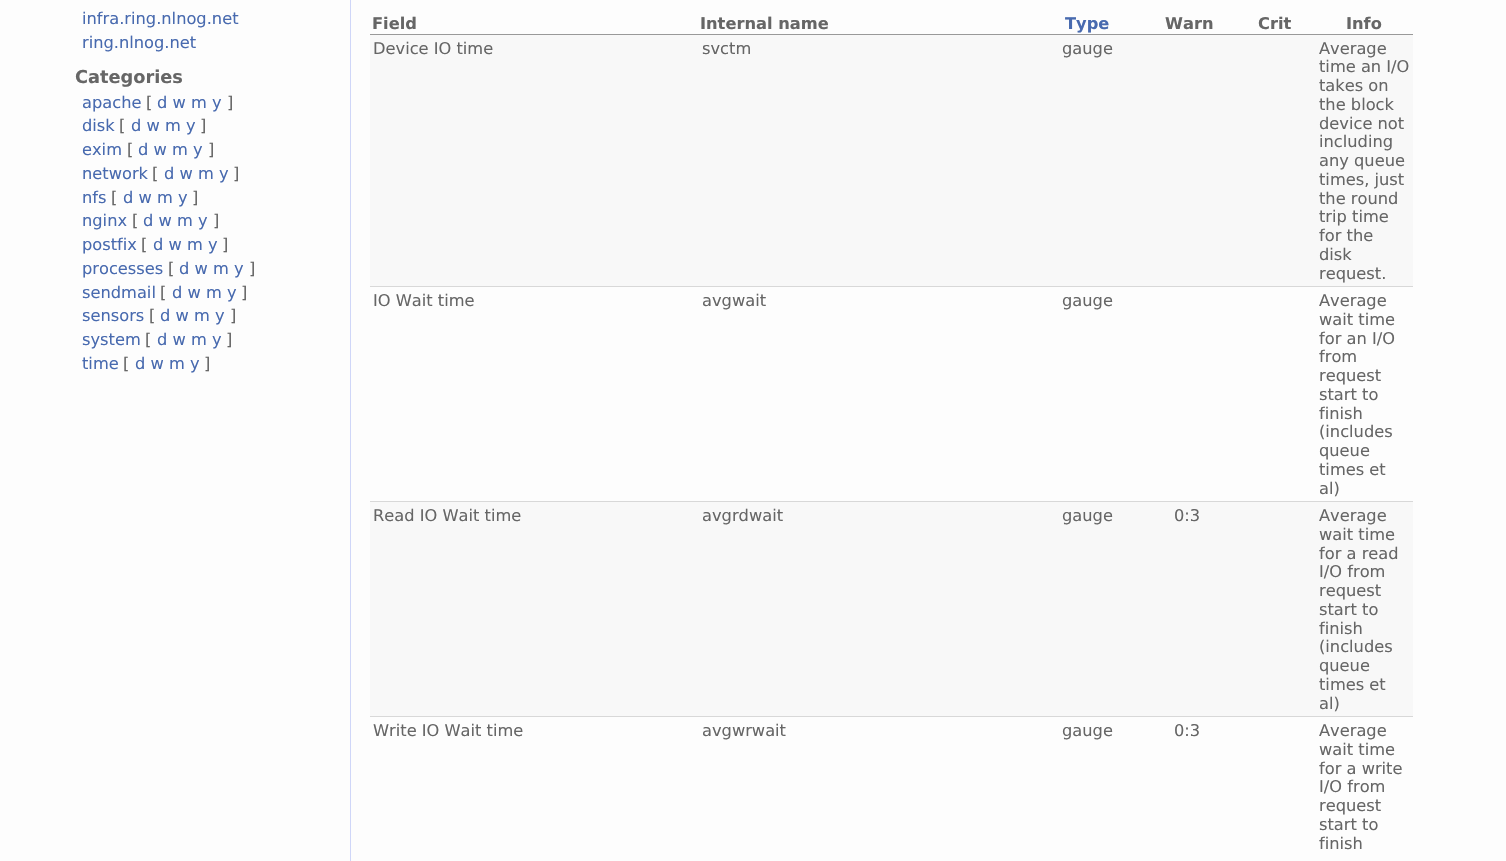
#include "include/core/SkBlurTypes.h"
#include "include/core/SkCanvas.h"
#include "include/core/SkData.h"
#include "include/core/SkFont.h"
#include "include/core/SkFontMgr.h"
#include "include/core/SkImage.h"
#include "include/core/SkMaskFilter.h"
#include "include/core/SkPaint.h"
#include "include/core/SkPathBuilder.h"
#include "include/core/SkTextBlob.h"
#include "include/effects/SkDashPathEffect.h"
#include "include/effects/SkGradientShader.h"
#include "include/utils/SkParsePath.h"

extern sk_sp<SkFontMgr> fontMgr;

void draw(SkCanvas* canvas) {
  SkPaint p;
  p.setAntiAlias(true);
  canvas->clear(SkColorSetRGB(253, 253, 253));
  p.setColor(SkColorSetRGB(207, 214, 248));
  canvas->drawRect(SkRect::MakeLTRB(350, 0, 351, 861), p);
  p.setColor(SkColorSetRGB(153, 153, 153));
  canvas->drawRect(SkRect::MakeLTRB(370, 34, 1413, 35), p);
  p.setColor(SkColorSetRGB(248, 248, 248));
  canvas->drawRect(SkRect::MakeLTRB(370, 35, 1413, 286), p);
  p.setColor(SkColorSetRGB(216, 216, 216));
  canvas->drawRect(SkRect::MakeLTRB(370, 286, 1413, 287), p);
  canvas->drawRect(SkRect::MakeLTRB(370, 501, 1413, 502), p);
  p.setColor(SkColorSetRGB(248, 248, 248));
  canvas->drawRect(SkRect::MakeLTRB(370, 502, 1413, 716), p);
  p.setColor(SkColorSetRGB(216, 216, 216));
  canvas->drawRect(SkRect::MakeLTRB(370, 716, 1413, 717), p);
  SkFont font1(fontMgr->matchFamilyStyle("DejaVu Sans", SkFontStyle::Normal()), 16.25f);
  font1.setSubpixel(true);
  p.setColor(SkColorSetRGB(72, 106, 175));
  canvas->drawString("infra.ring.nlnog.net", 82, 24, font1, p);
  canvas->drawString("ring.nlnog.net", 82, 48, font1, p);
  SkFont font2(fontMgr->matchFamilyStyle("DejaVu Sans", SkFontStyle::Bold()), 17.75f);
  font2.setSubpixel(true);
  p.setColor(SkColorSetRGB(102, 102, 102));
  canvas->drawString("Categories", 75, 83, font2, p);
  p.setColor(SkColorSetRGB(72, 106, 175));
  canvas->drawString("apache", 82, 108, font1, p);
  p.setColor(SkColorSetRGB(102, 102, 102));
  canvas->drawString("[", 146, 108, font1, p);
  p.setColor(SkColorSetRGB(72, 106, 175));
  canvas->drawString("d w m y", 157, 108, font1, p);
  p.setColor(SkColorSetRGB(102, 102, 102));
  canvas->drawString("]", 227, 108, font1, p);
  p.setColor(SkColorSetRGB(72, 106, 175));
  canvas->drawString("disk", 82, 131, font1, p);
  p.setColor(SkColorSetRGB(102, 102, 102));
  canvas->drawString("[", 119, 131, font1, p);
  p.setColor(SkColorSetRGB(72, 106, 175));
  canvas->drawString("d w m y", 131, 131, font1, p);
  p.setColor(SkColorSetRGB(102, 102, 102));
  canvas->drawString("]", 200, 131, font1, p);
  p.setColor(SkColorSetRGB(72, 106, 175));
  canvas->drawString("exim", 82, 155, font1, p);
  p.setColor(SkColorSetRGB(102, 102, 102));
  canvas->drawString("[", 127, 155, font1, p);
  p.setColor(SkColorSetRGB(72, 106, 175));
  canvas->drawString("d w m y", 138, 155, font1, p);
  p.setColor(SkColorSetRGB(102, 102, 102));
  canvas->drawString("]", 208, 155, font1, p);
  p.setColor(SkColorSetRGB(72, 106, 175));
  canvas->drawString("network", 82, 179, font1, p);
  p.setColor(SkColorSetRGB(102, 102, 102));
  canvas->drawString("[", 152, 179, font1, p);
  p.setColor(SkColorSetRGB(72, 106, 175));
  canvas->drawString("d w m y", 164, 179, font1, p);
  p.setColor(SkColorSetRGB(102, 102, 102));
  canvas->drawString("]", 233, 179, font1, p);
  p.setColor(SkColorSetRGB(72, 106, 175));
  canvas->drawString("nfs", 82, 203, font1, p);
  p.setColor(SkColorSetRGB(102, 102, 102));
  canvas->drawString("[", 111, 203, font1, p);
  p.setColor(SkColorSetRGB(72, 106, 175));
  canvas->drawString("d w m y", 123, 203, font1, p);
  p.setColor(SkColorSetRGB(102, 102, 102));
  canvas->drawString("]", 192, 203, font1, p);
  p.setColor(SkColorSetRGB(72, 106, 175));
  canvas->drawString("nginx", 82, 226, font1, p);
  p.setColor(SkColorSetRGB(102, 102, 102));
  canvas->drawString("[", 132, 226, font1, p);
  p.setColor(SkColorSetRGB(72, 106, 175));
  canvas->drawString("d w m y", 143, 226, font1, p);
  p.setColor(SkColorSetRGB(102, 102, 102));
  canvas->drawString("]", 213, 226, font1, p);
  p.setColor(SkColorSetRGB(72, 106, 175));
  canvas->drawString("postfix", 82, 250, font1, p);
  p.setColor(SkColorSetRGB(102, 102, 102));
  canvas->drawString("[", 141, 250, font1, p);
  p.setColor(SkColorSetRGB(72, 106, 175));
  canvas->drawString("d w m y", 153, 250, font1, p);
  p.setColor(SkColorSetRGB(102, 102, 102));
  canvas->drawString("]", 222, 250, font1, p);
  p.setColor(SkColorSetRGB(72, 106, 175));
  canvas->drawString("processes", 82, 274, font1, p);
  p.setColor(SkColorSetRGB(102, 102, 102));
  canvas->drawString("[", 168, 274, font1, p);
  p.setColor(SkColorSetRGB(72, 106, 175));
  canvas->drawString("d w m y", 179, 274, font1, p);
  p.setColor(SkColorSetRGB(102, 102, 102));
  canvas->drawString("]", 249, 274, font1, p);
  p.setColor(SkColorSetRGB(72, 106, 175));
  canvas->drawString("sendmail", 82, 298, font1, p);
  p.setColor(SkColorSetRGB(102, 102, 102));
  canvas->drawString("[", 160, 298, font1, p);
  p.setColor(SkColorSetRGB(72, 106, 175));
  canvas->drawString("d w m y", 172, 298, font1, p);
  p.setColor(SkColorSetRGB(102, 102, 102));
  canvas->drawString("]", 241, 298, font1, p);
  p.setColor(SkColorSetRGB(72, 106, 175));
  canvas->drawString("sensors", 82, 321, font1, p);
  p.setColor(SkColorSetRGB(102, 102, 102));
  canvas->drawString("[", 149, 321, font1, p);
  p.setColor(SkColorSetRGB(72, 106, 175));
  canvas->drawString("d w m y", 160, 321, font1, p);
  p.setColor(SkColorSetRGB(102, 102, 102));
  canvas->drawString("]", 230, 321, font1, p);
  p.setColor(SkColorSetRGB(72, 106, 175));
  canvas->drawString("system", 82, 345, font1, p);
  p.setColor(SkColorSetRGB(102, 102, 102));
  canvas->drawString("[", 145, 345, font1, p);
  p.setColor(SkColorSetRGB(72, 106, 175));
  canvas->drawString("d w m y", 157, 345, font1, p);
  p.setColor(SkColorSetRGB(102, 102, 102));
  canvas->drawString("]", 226, 345, font1, p);
  p.setColor(SkColorSetRGB(72, 106, 175));
  canvas->drawString("time", 82, 369, font1, p);
  p.setColor(SkColorSetRGB(102, 102, 102));
  canvas->drawString("[", 123, 369, font1, p);
  p.setColor(SkColorSetRGB(72, 106, 175));
  canvas->drawString("d w m y", 135, 369, font1, p);
  p.setColor(SkColorSetRGB(102, 102, 102));
  canvas->drawString("]", 204, 369, font1, p);
  SkFont font3(fontMgr->matchFamilyStyle("DejaVu Sans", SkFontStyle::Bold()), 16.25f);
  font3.setSubpixel(true);
  canvas->drawString("Field", 372, 29, font3, p);
  canvas->drawString("Internal name", 700, 29, font3, p);
  p.setColor(SkColorSetRGB(72, 106, 175));
  canvas->drawString("Type", 1065, 29, font3, p);
  p.setColor(SkColorSetRGB(102, 102, 102));
  canvas->drawString("Warn", 1165, 29, font3, p);
  canvas->drawString("Crit", 1258, 29, font3, p);
  canvas->drawString("Info", 1346, 29, font3, p);
  canvas->drawString("Device IO time", 373, 54, font1, p);
  canvas->drawString("svctm", 702, 54, font1, p);
  canvas->drawString("gauge", 1062, 54, font1, p);
  canvas->drawString("Average", 1319, 54, font1, p);
  canvas->drawString("time an I/O", 1319, 72, font1, p);
  canvas->drawString("takes on", 1319, 91, font1, p);
  canvas->drawString("the block", 1319, 110, font1, p);
  canvas->drawString("device not", 1319, 129, font1, p);
  canvas->drawString("including", 1319, 147, font1, p);
  canvas->drawString("any queue", 1319, 166, font1, p);
  canvas->drawString("times, just", 1319, 185, font1, p);
  canvas->drawString("the round", 1319, 204, font1, p);
  canvas->drawString("trip time", 1319, 222, font1, p);
  canvas->drawString("for the", 1319, 241, font1, p);
  canvas->drawString("disk", 1319, 260, font1, p);
  canvas->drawString("request.", 1319, 279, font1, p);
  canvas->drawString("IO Wait time", 373, 306, font1, p);
  canvas->drawString("avgwait", 702, 306, font1, p);
  canvas->drawString("gauge", 1062, 306, font1, p);
  canvas->drawString("Average", 1319, 306, font1, p);
  canvas->drawString("wait time", 1319, 325, font1, p);
  canvas->drawString("for an I/O", 1319, 344, font1, p);
  canvas->drawString("from", 1319, 362, font1, p);
  canvas->drawString("request", 1319, 381, font1, p);
  canvas->drawString("start to", 1319, 400, font1, p);
  canvas->drawString("finish", 1319, 419, font1, p);
  canvas->drawString("(includes", 1319, 437, font1, p);
  canvas->drawString("queue", 1319, 456, font1, p);
  canvas->drawString("times et", 1319, 475, font1, p);
  canvas->drawString("al)", 1319, 494, font1, p);
  canvas->drawString("Read IO Wait time", 373, 521, font1, p);
  canvas->drawString("avgrdwait", 702, 521, font1, p);
  canvas->drawString("gauge", 1062, 521, font1, p);
  canvas->drawString("0:3", 1174, 521, font1, p);
  canvas->drawString("Average", 1319, 521, font1, p);
  canvas->drawString("wait time", 1319, 540, font1, p);
  canvas->drawString("for a read", 1319, 559, font1, p);
  canvas->drawString("I/O from", 1319, 577, font1, p);
  canvas->drawString("request", 1319, 596, font1, p);
  canvas->drawString("start to", 1319, 615, font1, p);
  canvas->drawString("finish", 1319, 634, font1, p);
  canvas->drawString("(includes", 1319, 652, font1, p);
  canvas->drawString("queue", 1319, 671, font1, p);
  canvas->drawString("times et", 1319, 690, font1, p);
  canvas->drawString("al)", 1319, 709, font1, p);
  canvas->drawString("Write IO Wait time", 373, 736, font1, p);
  canvas->drawString("avgwrwait", 702, 736, font1, p);
  canvas->drawString("gauge", 1062, 736, font1, p);
  canvas->drawString("0:3", 1174, 736, font1, p);
  canvas->drawString("Average", 1319, 736, font1, p);
  canvas->drawString("wait time", 1319, 755, font1, p);
  canvas->drawString("for a write", 1319, 774, font1, p);
  canvas->drawString("I/O from", 1319, 792, font1, p);
  canvas->drawString("request", 1319, 811, font1, p);
  canvas->drawString("start to", 1319, 830, font1, p);
  canvas->drawString("finish", 1319, 849, font1, p);
}
